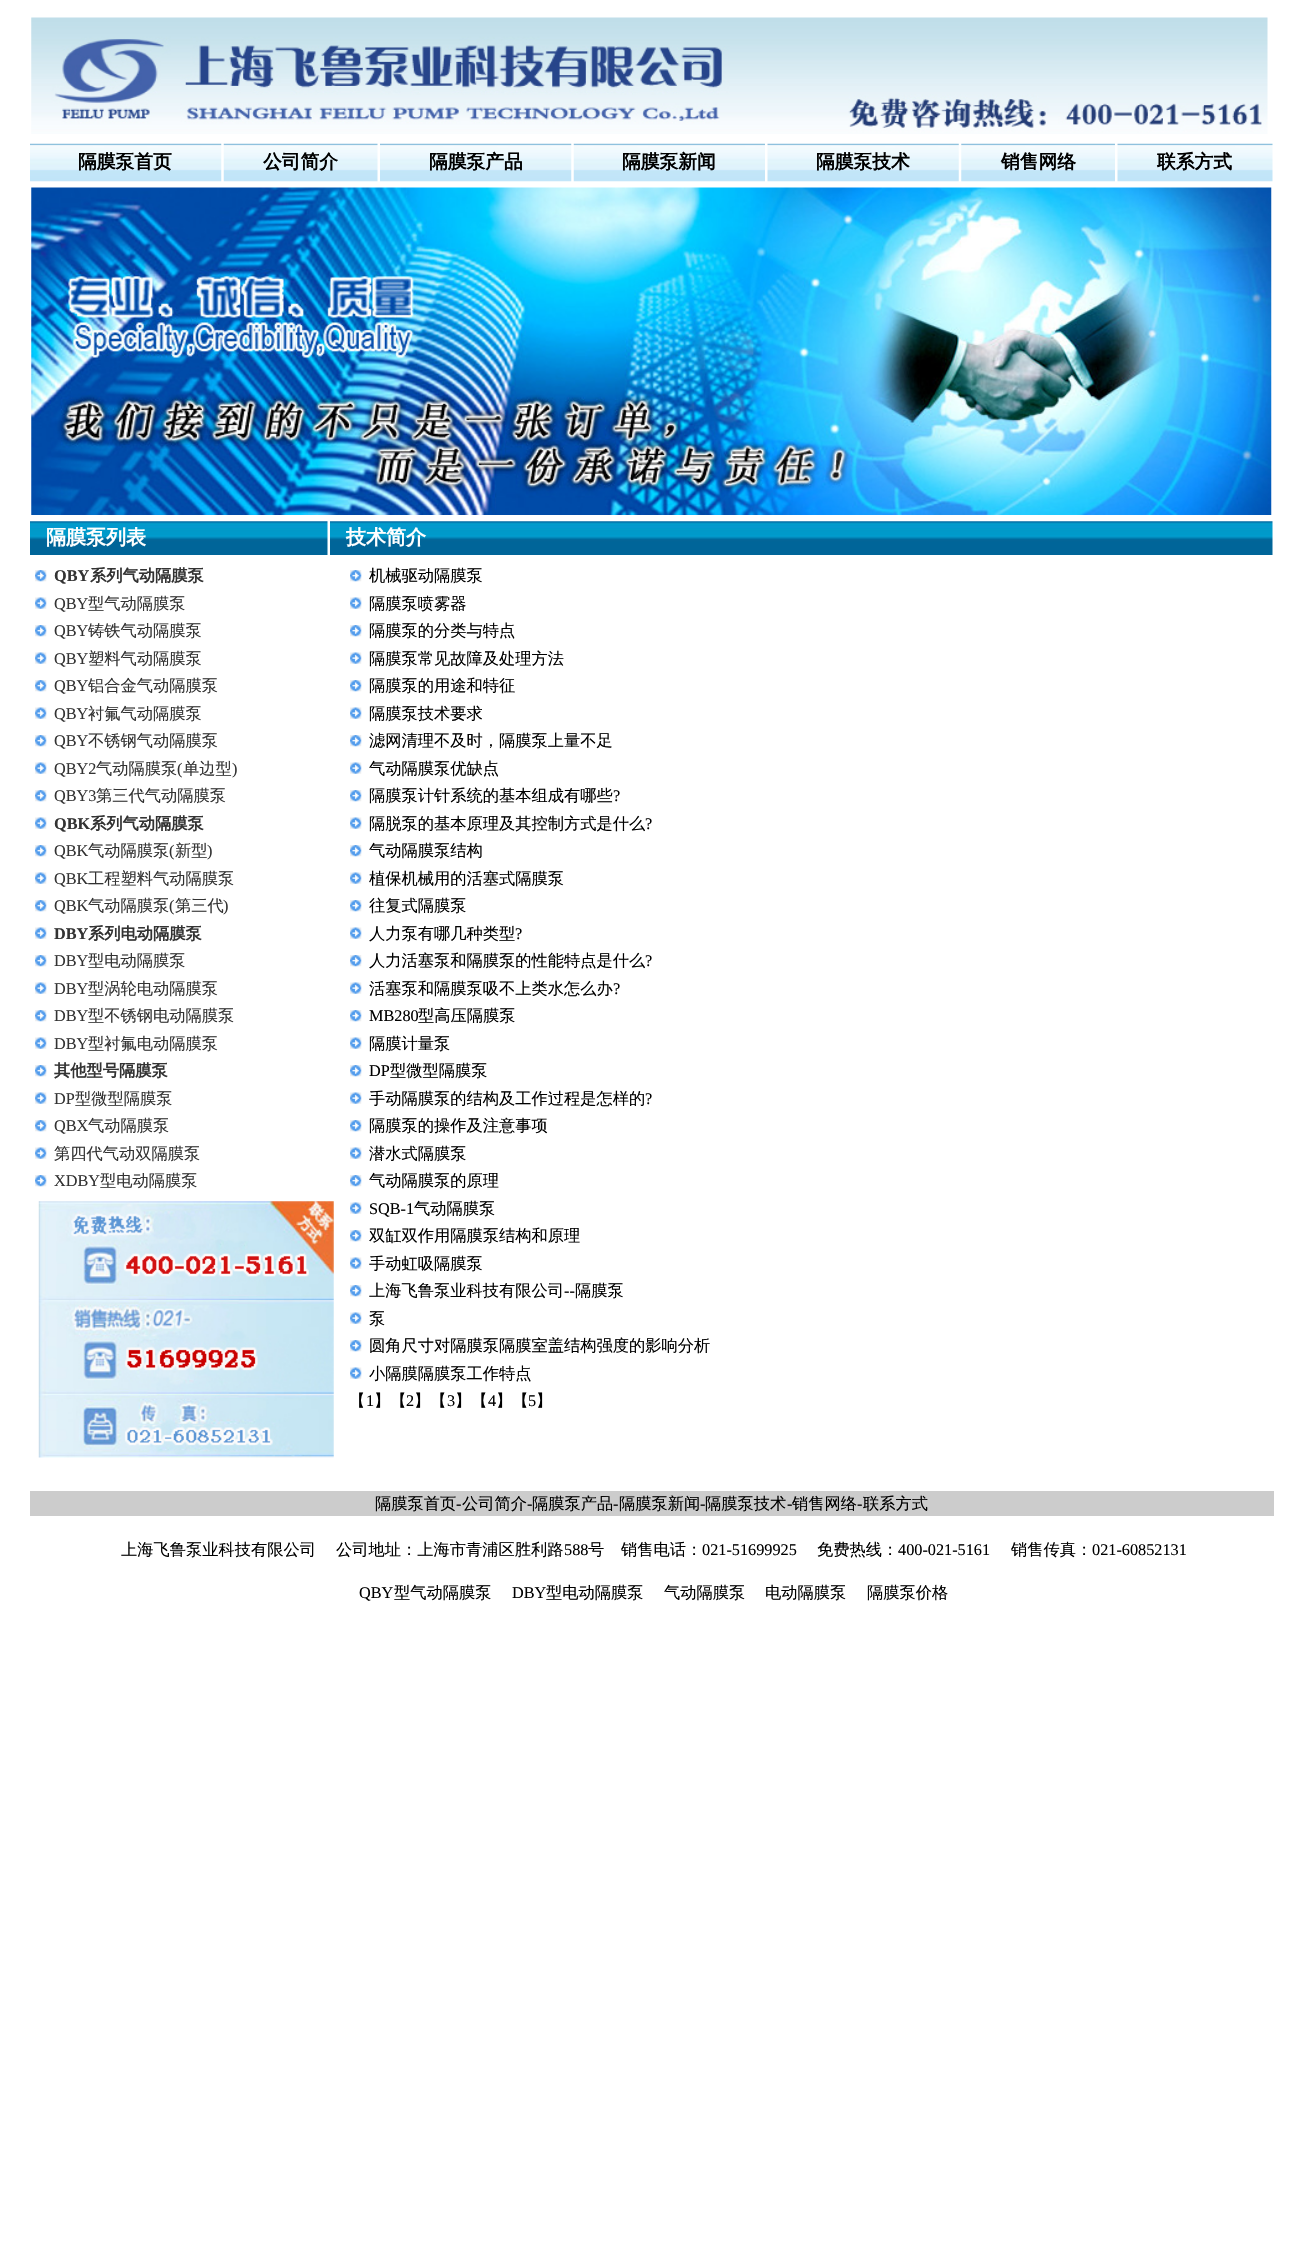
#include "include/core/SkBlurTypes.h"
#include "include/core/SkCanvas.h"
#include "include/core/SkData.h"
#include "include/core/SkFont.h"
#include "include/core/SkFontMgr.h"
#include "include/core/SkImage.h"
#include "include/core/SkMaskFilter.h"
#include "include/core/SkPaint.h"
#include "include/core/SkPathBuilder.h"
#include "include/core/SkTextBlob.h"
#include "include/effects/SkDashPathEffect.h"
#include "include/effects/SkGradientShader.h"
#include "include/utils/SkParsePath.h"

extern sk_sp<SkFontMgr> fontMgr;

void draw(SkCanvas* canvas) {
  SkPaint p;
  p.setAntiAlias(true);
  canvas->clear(SK_ColorWHITE);
  canvas->drawImageRect(SkImages::DeferredFromEncodedData(SkData::MakeFromFileName("images/1.png")), SkRect::MakeLTRB(31, 17, 1268, 134), SkSamplingOptions());
  canvas->drawImageRect(SkImages::DeferredFromEncodedData(SkData::MakeFromFileName("images/2.png")), SkRect::MakeLTRB(30, 143, 222, 182), SkSamplingOptions());
  canvas->drawImageRect(SkImages::DeferredFromEncodedData(SkData::MakeFromFileName("images/3.png")), SkRect::MakeLTRB(223, 143, 378, 182), SkSamplingOptions());
  canvas->drawImageRect(SkImages::DeferredFromEncodedData(SkData::MakeFromFileName("images/4.png")), SkRect::MakeLTRB(380, 143, 572, 182), SkSamplingOptions());
  canvas->drawImageRect(SkImages::DeferredFromEncodedData(SkData::MakeFromFileName("images/5.png")), SkRect::MakeLTRB(573, 143, 765, 182), SkSamplingOptions());
  canvas->drawImageRect(SkImages::DeferredFromEncodedData(SkData::MakeFromFileName("images/6.png")), SkRect::MakeLTRB(767, 143, 959, 182), SkSamplingOptions());
  canvas->drawImageRect(SkImages::DeferredFromEncodedData(SkData::MakeFromFileName("images/7.png")), SkRect::MakeLTRB(961, 143, 1115, 182), SkSamplingOptions());
  canvas->drawImageRect(SkImages::DeferredFromEncodedData(SkData::MakeFromFileName("images/8.png")), SkRect::MakeLTRB(1117, 143, 1273, 182), SkSamplingOptions());
  canvas->drawImageRect(SkImages::DeferredFromEncodedData(SkData::MakeFromFileName("images/9.png")), SkRect::MakeLTRB(31, 187, 1272, 515), SkSamplingOptions());
  canvas->drawImageRect(SkImages::DeferredFromEncodedData(SkData::MakeFromFileName("images/10.png")), SkRect::MakeLTRB(30, 521, 328, 555), SkSamplingOptions());
  canvas->drawImageRect(SkImages::DeferredFromEncodedData(SkData::MakeFromFileName("images/11.png")), SkRect::MakeLTRB(330, 521, 1273, 555), SkSamplingOptions());
  canvas->drawImageRect(SkImages::DeferredFromEncodedData(SkData::MakeFromFileName("images/12.png")), SkRect::MakeLTRB(35, 570, 47, 582), SkSamplingOptions());
  canvas->drawImageRect(SkImages::DeferredFromEncodedData(SkData::MakeFromFileName("images/13.png")), SkRect::MakeLTRB(35, 597, 47, 609), SkSamplingOptions());
  canvas->drawImageRect(SkImages::DeferredFromEncodedData(SkData::MakeFromFileName("images/12.png")), SkRect::MakeLTRB(35, 625, 47, 637), SkSamplingOptions());
  canvas->drawImageRect(SkImages::DeferredFromEncodedData(SkData::MakeFromFileName("images/13.png")), SkRect::MakeLTRB(35, 652, 47, 664), SkSamplingOptions());
  canvas->drawImageRect(SkImages::DeferredFromEncodedData(SkData::MakeFromFileName("images/12.png")), SkRect::MakeLTRB(35, 680, 47, 692), SkSamplingOptions());
  canvas->drawImageRect(SkImages::DeferredFromEncodedData(SkData::MakeFromFileName("images/13.png")), SkRect::MakeLTRB(35, 707, 47, 719), SkSamplingOptions());
  canvas->drawImageRect(SkImages::DeferredFromEncodedData(SkData::MakeFromFileName("images/12.png")), SkRect::MakeLTRB(35, 735, 47, 747), SkSamplingOptions());
  canvas->drawImageRect(SkImages::DeferredFromEncodedData(SkData::MakeFromFileName("images/13.png")), SkRect::MakeLTRB(35, 762, 47, 774), SkSamplingOptions());
  canvas->drawImageRect(SkImages::DeferredFromEncodedData(SkData::MakeFromFileName("images/12.png")), SkRect::MakeLTRB(35, 790, 47, 802), SkSamplingOptions());
  canvas->drawImageRect(SkImages::DeferredFromEncodedData(SkData::MakeFromFileName("images/13.png")), SkRect::MakeLTRB(35, 817, 47, 829), SkSamplingOptions());
  canvas->drawImageRect(SkImages::DeferredFromEncodedData(SkData::MakeFromFileName("images/12.png")), SkRect::MakeLTRB(35, 845, 47, 857), SkSamplingOptions());
  canvas->drawImageRect(SkImages::DeferredFromEncodedData(SkData::MakeFromFileName("images/13.png")), SkRect::MakeLTRB(35, 872, 47, 884), SkSamplingOptions());
  canvas->drawImageRect(SkImages::DeferredFromEncodedData(SkData::MakeFromFileName("images/12.png")), SkRect::MakeLTRB(35, 900, 47, 912), SkSamplingOptions());
  canvas->drawImageRect(SkImages::DeferredFromEncodedData(SkData::MakeFromFileName("images/13.png")), SkRect::MakeLTRB(35, 927, 47, 939), SkSamplingOptions());
  canvas->drawImageRect(SkImages::DeferredFromEncodedData(SkData::MakeFromFileName("images/12.png")), SkRect::MakeLTRB(35, 955, 47, 967), SkSamplingOptions());
  canvas->drawImageRect(SkImages::DeferredFromEncodedData(SkData::MakeFromFileName("images/13.png")), SkRect::MakeLTRB(35, 982, 47, 994), SkSamplingOptions());
  canvas->drawImageRect(SkImages::DeferredFromEncodedData(SkData::MakeFromFileName("images/12.png")), SkRect::MakeLTRB(35, 1010, 47, 1022), SkSamplingOptions());
  canvas->drawImageRect(SkImages::DeferredFromEncodedData(SkData::MakeFromFileName("images/13.png")), SkRect::MakeLTRB(35, 1037, 47, 1049), SkSamplingOptions());
  canvas->drawImageRect(SkImages::DeferredFromEncodedData(SkData::MakeFromFileName("images/12.png")), SkRect::MakeLTRB(35, 1065, 47, 1077), SkSamplingOptions());
  canvas->drawImageRect(SkImages::DeferredFromEncodedData(SkData::MakeFromFileName("images/13.png")), SkRect::MakeLTRB(35, 1092, 47, 1104), SkSamplingOptions());
  canvas->drawImageRect(SkImages::DeferredFromEncodedData(SkData::MakeFromFileName("images/12.png")), SkRect::MakeLTRB(35, 1120, 47, 1132), SkSamplingOptions());
  canvas->drawImageRect(SkImages::DeferredFromEncodedData(SkData::MakeFromFileName("images/13.png")), SkRect::MakeLTRB(35, 1147, 47, 1159), SkSamplingOptions());
  canvas->drawImageRect(SkImages::DeferredFromEncodedData(SkData::MakeFromFileName("images/14.png")), SkRect::MakeLTRB(35, 1175, 47, 1187), SkSamplingOptions());
  canvas->drawImageRect(SkImages::DeferredFromEncodedData(SkData::MakeFromFileName("images/15.png")), SkRect::MakeLTRB(38, 1201, 334, 1458), SkSamplingOptions());
  canvas->drawImageRect(SkImages::DeferredFromEncodedData(SkData::MakeFromFileName("images/16.png")), SkRect::MakeLTRB(350, 570, 362, 582), SkSamplingOptions());
  canvas->drawImageRect(SkImages::DeferredFromEncodedData(SkData::MakeFromFileName("images/17.png")), SkRect::MakeLTRB(350, 597, 362, 609), SkSamplingOptions());
  canvas->drawImageRect(SkImages::DeferredFromEncodedData(SkData::MakeFromFileName("images/16.png")), SkRect::MakeLTRB(350, 625, 362, 637), SkSamplingOptions());
  canvas->drawImageRect(SkImages::DeferredFromEncodedData(SkData::MakeFromFileName("images/17.png")), SkRect::MakeLTRB(350, 652, 362, 664), SkSamplingOptions());
  canvas->drawImageRect(SkImages::DeferredFromEncodedData(SkData::MakeFromFileName("images/16.png")), SkRect::MakeLTRB(350, 680, 362, 692), SkSamplingOptions());
  canvas->drawImageRect(SkImages::DeferredFromEncodedData(SkData::MakeFromFileName("images/17.png")), SkRect::MakeLTRB(350, 707, 362, 719), SkSamplingOptions());
  canvas->drawImageRect(SkImages::DeferredFromEncodedData(SkData::MakeFromFileName("images/16.png")), SkRect::MakeLTRB(350, 735, 362, 747), SkSamplingOptions());
  canvas->drawImageRect(SkImages::DeferredFromEncodedData(SkData::MakeFromFileName("images/17.png")), SkRect::MakeLTRB(350, 762, 362, 774), SkSamplingOptions());
  canvas->drawImageRect(SkImages::DeferredFromEncodedData(SkData::MakeFromFileName("images/16.png")), SkRect::MakeLTRB(350, 790, 362, 802), SkSamplingOptions());
  canvas->drawImageRect(SkImages::DeferredFromEncodedData(SkData::MakeFromFileName("images/17.png")), SkRect::MakeLTRB(350, 817, 362, 829), SkSamplingOptions());
  canvas->drawImageRect(SkImages::DeferredFromEncodedData(SkData::MakeFromFileName("images/16.png")), SkRect::MakeLTRB(350, 845, 362, 857), SkSamplingOptions());
  canvas->drawImageRect(SkImages::DeferredFromEncodedData(SkData::MakeFromFileName("images/17.png")), SkRect::MakeLTRB(350, 872, 362, 884), SkSamplingOptions());
  canvas->drawImageRect(SkImages::DeferredFromEncodedData(SkData::MakeFromFileName("images/16.png")), SkRect::MakeLTRB(350, 900, 362, 912), SkSamplingOptions());
  canvas->drawImageRect(SkImages::DeferredFromEncodedData(SkData::MakeFromFileName("images/17.png")), SkRect::MakeLTRB(350, 927, 362, 939), SkSamplingOptions());
  canvas->drawImageRect(SkImages::DeferredFromEncodedData(SkData::MakeFromFileName("images/16.png")), SkRect::MakeLTRB(350, 955, 362, 967), SkSamplingOptions());
  canvas->drawImageRect(SkImages::DeferredFromEncodedData(SkData::MakeFromFileName("images/17.png")), SkRect::MakeLTRB(350, 982, 362, 994), SkSamplingOptions());
  canvas->drawImageRect(SkImages::DeferredFromEncodedData(SkData::MakeFromFileName("images/16.png")), SkRect::MakeLTRB(350, 1010, 362, 1022), SkSamplingOptions());
  canvas->drawImageRect(SkImages::DeferredFromEncodedData(SkData::MakeFromFileName("images/17.png")), SkRect::MakeLTRB(350, 1037, 362, 1049), SkSamplingOptions());
  canvas->drawImageRect(SkImages::DeferredFromEncodedData(SkData::MakeFromFileName("images/16.png")), SkRect::MakeLTRB(350, 1065, 362, 1077), SkSamplingOptions());
  canvas->drawImageRect(SkImages::DeferredFromEncodedData(SkData::MakeFromFileName("images/17.png")), SkRect::MakeLTRB(350, 1092, 362, 1104), SkSamplingOptions());
  canvas->drawImageRect(SkImages::DeferredFromEncodedData(SkData::MakeFromFileName("images/16.png")), SkRect::MakeLTRB(350, 1120, 362, 1132), SkSamplingOptions());
  canvas->drawImageRect(SkImages::DeferredFromEncodedData(SkData::MakeFromFileName("images/17.png")), SkRect::MakeLTRB(350, 1147, 362, 1159), SkSamplingOptions());
  canvas->drawImageRect(SkImages::DeferredFromEncodedData(SkData::MakeFromFileName("images/18.png")), SkRect::MakeLTRB(350, 1175, 362, 1187), SkSamplingOptions());
  canvas->drawImageRect(SkImages::DeferredFromEncodedData(SkData::MakeFromFileName("images/17.png")), SkRect::MakeLTRB(350, 1202, 362, 1214), SkSamplingOptions());
  canvas->drawImageRect(SkImages::DeferredFromEncodedData(SkData::MakeFromFileName("images/16.png")), SkRect::MakeLTRB(350, 1230, 362, 1242), SkSamplingOptions());
  canvas->drawImageRect(SkImages::DeferredFromEncodedData(SkData::MakeFromFileName("images/17.png")), SkRect::MakeLTRB(350, 1257, 362, 1269), SkSamplingOptions());
  canvas->drawImageRect(SkImages::DeferredFromEncodedData(SkData::MakeFromFileName("images/16.png")), SkRect::MakeLTRB(350, 1285, 362, 1297), SkSamplingOptions());
  canvas->drawImageRect(SkImages::DeferredFromEncodedData(SkData::MakeFromFileName("images/17.png")), SkRect::MakeLTRB(350, 1312, 362, 1324), SkSamplingOptions());
  canvas->drawImageRect(SkImages::DeferredFromEncodedData(SkData::MakeFromFileName("images/16.png")), SkRect::MakeLTRB(350, 1340, 362, 1352), SkSamplingOptions());
  canvas->drawImageRect(SkImages::DeferredFromEncodedData(SkData::MakeFromFileName("images/17.png")), SkRect::MakeLTRB(350, 1367, 362, 1379), SkSamplingOptions());
  p.setColor(SkColorSetRGB(204, 204, 204));
  canvas->drawRect(SkRect::MakeLTRB(30, 1491, 1274, 1516), p);
  SkFont font1(fontMgr->matchFamilyStyle("WenQuanYi Zen Hei", SkFontStyle::Bold()), 18.75f);
  font1.setSubpixel(true);
  p.setColor(SK_ColorBLACK);
  canvas->drawString("隔膜泵首页", 78, 168, font1, p);
  canvas->drawString("公司简介", 263, 168, font1, p);
  canvas->drawString("隔膜泵产品", 429, 168, font1, p);
  canvas->drawString("隔膜泵新闻", 622, 168, font1, p);
  canvas->drawString("隔膜泵技术", 816, 168, font1, p);
  canvas->drawString("销售网络", 1001, 168, font1, p);
  canvas->drawString("联系方式", 1157, 168, font1, p);
  SkFont font2(fontMgr->matchFamilyStyle("WenQuanYi Zen Hei", SkFontStyle::Bold()), 20);
  font2.setSubpixel(true);
  p.setColor(SK_ColorWHITE);
  canvas->drawString("隔膜泵列表", 46, 544, font2, p);
  canvas->drawString("技术简介", 346, 544, font2, p);
  SkFont font3(fontMgr->matchFamilyStyle("Liberation Serif", SkFontStyle::Bold()), 16.25f);
  font3.setSubpixel(true);
  p.setColor(SkColorSetRGB(51, 51, 51));
  canvas->drawString("QBY", 54, 581, font3, p);
  SkFont font4(fontMgr->matchFamilyStyle("WenQuanYi Zen Hei", SkFontStyle::Bold()), 16.25f);
  font4.setSubpixel(true);
  canvas->drawString("系列气动隔膜泵", 90, 581, font4, p);
  SkFont font5(fontMgr->matchFamilyStyle("Liberation Serif", SkFontStyle::Normal()), 16.25f);
  font5.setSubpixel(true);
  canvas->drawString("QBY", 54, 609, font5, p);
  SkFont font6(fontMgr->matchFamilyStyle("WenQuanYi Zen Hei", SkFontStyle(500, SkFontStyle::kNormal_Width, SkFontStyle::kUpright_Slant)), 16.25f);
  font6.setSubpixel(true);
  canvas->drawString("型气动隔膜泵", 88, 609, font6, p);
  canvas->drawString("QBY", 54, 636, font5, p);
  canvas->drawString("铸铁气动隔膜泵", 88, 636, font6, p);
  canvas->drawString("QBY", 54, 664, font5, p);
  canvas->drawString("塑料气动隔膜泵", 88, 664, font6, p);
  canvas->drawString("QBY", 54, 691, font5, p);
  canvas->drawString("铝合金气动隔膜泵", 88, 691, font6, p);
  canvas->drawString("QBY", 54, 719, font5, p);
  canvas->drawString("衬氟气动隔膜泵", 88, 719, font6, p);
  canvas->drawString("QBY", 54, 746, font5, p);
  canvas->drawString("不锈钢气动隔膜泵", 88, 746, font6, p);
  canvas->drawString("QBY2", 54, 774, font5, p);
  canvas->drawString("气动隔膜泵", 96, 774, font6, p);
  canvas->drawString("(", 177, 774, font5, p);
  canvas->drawString("单边型", 183, 774, font6, p);
  canvas->drawString(")", 232, 774, font5, p);
  canvas->drawString("QBY3", 54, 801, font5, p);
  canvas->drawString("第三代气动隔膜泵", 96, 801, font6, p);
  canvas->drawString("QBK", 54, 829, font3, p);
  canvas->drawString("系列气动隔膜泵", 90, 829, font4, p);
  canvas->drawString("QBK", 54, 856, font5, p);
  canvas->drawString("气动隔膜泵", 88, 856, font6, p);
  canvas->drawString("(", 169, 856, font5, p);
  canvas->drawString("新型", 175, 856, font6, p);
  canvas->drawString(")", 207, 856, font5, p);
  canvas->drawString("QBK", 54, 884, font5, p);
  canvas->drawString("工程塑料气动隔膜泵", 88, 884, font6, p);
  canvas->drawString("QBK", 54, 911, font5, p);
  canvas->drawString("气动隔膜泵", 88, 911, font6, p);
  canvas->drawString("(", 169, 911, font5, p);
  canvas->drawString("第三代", 175, 911, font6, p);
  canvas->drawString(")", 223, 911, font5, p);
  canvas->drawString("DBY", 54, 939, font3, p);
  canvas->drawString("系列电动隔膜泵", 88, 939, font4, p);
  canvas->drawString("DBY", 54, 966, font5, p);
  canvas->drawString("型电动隔膜泵", 88, 966, font6, p);
  canvas->drawString("DBY", 54, 994, font5, p);
  canvas->drawString("型涡轮电动隔膜泵", 88, 994, font6, p);
  canvas->drawString("DBY", 54, 1021, font5, p);
  canvas->drawString("型不锈钢电动隔膜泵", 88, 1021, font6, p);
  canvas->drawString("DBY", 54, 1049, font5, p);
  canvas->drawString("型衬氟电动隔膜泵", 88, 1049, font6, p);
  canvas->drawString("其他型号隔膜泵", 54, 1076, font4, p);
  canvas->drawString("DP", 54, 1104, font5, p);
  canvas->drawString("型微型隔膜泵", 75, 1104, font6, p);
  canvas->drawString("QBX", 54, 1131, font5, p);
  canvas->drawString("气动隔膜泵", 88, 1131, font6, p);
  canvas->drawString("第四代气动双隔膜泵", 54, 1159, font6, p);
  canvas->drawString("XDBY", 54, 1186, font5, p);
  canvas->drawString("型电动隔膜泵", 100, 1186, font6, p);
  p.setColor(SK_ColorBLACK);
  canvas->drawString("机械驱动隔膜泵", 369, 581, font6, p);
  canvas->drawString("隔膜泵喷雾器", 369, 609, font6, p);
  canvas->drawString("隔膜泵的分类与特点", 369, 636, font6, p);
  canvas->drawString("隔膜泵常见故障及处理方法", 369, 664, font6, p);
  canvas->drawString("隔膜泵的用途和特征", 369, 691, font6, p);
  canvas->drawString("隔膜泵技术要求", 369, 719, font6, p);
  canvas->drawString("滤网清理不及时，隔膜泵上量不足", 369, 746, font6, p);
  canvas->drawString("气动隔膜泵优缺点", 369, 774, font6, p);
  canvas->drawString("隔膜泵计针系统的基本组成有哪些", 369, 801, font6, p);
  canvas->drawString("?", 613, 801, font5, p);
  canvas->drawString("隔脱泵的基本原理及其控制方式是什么", 369, 829, font6, p);
  canvas->drawString("?", 645, 829, font5, p);
  canvas->drawString("气动隔膜泵结构", 369, 856, font6, p);
  canvas->drawString("植保机械用的活塞式隔膜泵", 369, 884, font6, p);
  canvas->drawString("往复式隔膜泵", 369, 911, font6, p);
  canvas->drawString("人力泵有哪几种类型", 369, 939, font6, p);
  canvas->drawString("?", 515, 939, font5, p);
  canvas->drawString("人力活塞泵和隔膜泵的性能特点是什么", 369, 966, font6, p);
  canvas->drawString("?", 645, 966, font5, p);
  canvas->drawString("活塞泵和隔膜泵吸不上类水怎么办", 369, 994, font6, p);
  canvas->drawString("?", 613, 994, font5, p);
  canvas->drawString("MB280", 369, 1021, font5, p);
  canvas->drawString("型高压隔膜泵", 418, 1021, font6, p);
  canvas->drawString("隔膜计量泵", 369, 1049, font6, p);
  canvas->drawString("DP", 369, 1076, font5, p);
  canvas->drawString("型微型隔膜泵", 390, 1076, font6, p);
  canvas->drawString("手动隔膜泵的结构及工作过程是怎样的", 369, 1104, font6, p);
  canvas->drawString("?", 645, 1104, font5, p);
  canvas->drawString("隔膜泵的操作及注意事项", 369, 1131, font6, p);
  canvas->drawString("潜水式隔膜泵", 369, 1159, font6, p);
  canvas->drawString("气动隔膜泵的原理", 369, 1186, font6, p);
  canvas->drawString("SQB-1", 369, 1214, font5, p);
  canvas->drawString("气动隔膜泵", 414, 1214, font6, p);
  canvas->drawString("双缸双作用隔膜泵结构和原理", 369, 1241, font6, p);
  canvas->drawString("手动虹吸隔膜泵", 369, 1269, font6, p);
  canvas->drawString("上海飞鲁泵业科技有限公司", 369, 1296, font6, p);
  canvas->drawString("--", 564, 1296, font5, p);
  canvas->drawString("隔膜泵", 575, 1296, font6, p);
  canvas->drawString("泵", 369, 1324, font6, p);
  canvas->drawString("圆角尺寸对隔膜泵隔膜室盖结构强度的影响分析", 369, 1351, font6, p);
  canvas->drawString("小隔膜隔膜泵工作特点", 369, 1379, font6, p);
  canvas->drawString("【", 349, 1406, font6, p);
  canvas->drawString("1", 366, 1406, font5, p);
  canvas->drawString("】【", 374, 1406, font6, p);
  canvas->drawString("2", 406, 1406, font5, p);
  canvas->drawString("】【", 414, 1406, font6, p);
  canvas->drawString("3", 447, 1406, font5, p);
  canvas->drawString("】【", 455, 1406, font6, p);
  canvas->drawString("4", 488, 1406, font5, p);
  canvas->drawString("】【", 496, 1406, font6, p);
  canvas->drawString("5", 528, 1406, font5, p);
  canvas->drawString("】", 536, 1406, font6, p);
  canvas->drawString("隔膜泵首页", 375, 1509, font6, p);
  canvas->drawString("-", 456, 1509, font5, p);
  canvas->drawString("公司简介", 462, 1509, font6, p);
  canvas->drawString("-", 527, 1509, font5, p);
  canvas->drawString("隔膜泵产品", 532, 1509, font6, p);
  canvas->drawString("-", 613, 1509, font5, p);
  canvas->drawString("隔膜泵新闻", 619, 1509, font6, p);
  canvas->drawString("-", 700, 1509, font5, p);
  canvas->drawString("隔膜泵技术", 705, 1509, font6, p);
  canvas->drawString("-", 787, 1509, font5, p);
  canvas->drawString("销售网络", 792, 1509, font6, p);
  canvas->drawString("-", 857, 1509, font5, p);
  canvas->drawString("联系方式", 863, 1509, font6, p);
  canvas->drawString("上海飞鲁泵业科技有限公司", 121, 1555, font6, p);
  canvas->drawString("公司地址：上海市青浦区胜利路", 336, 1555, font6, p);
  canvas->drawString("588", 564, 1555, font5, p);
  canvas->drawString("号", 588, 1555, font6, p);
  canvas->drawString("销售电话：", 621, 1555, font6, p);
  canvas->drawString("021-51699925", 702, 1555, font5, p);
  canvas->drawString("免费热线：", 817, 1555, font6, p);
  canvas->drawString("400-021-5161", 898, 1555, font5, p);
  canvas->drawString("销售传真：", 1011, 1555, font6, p);
  canvas->drawString("021-60852131", 1092, 1555, font5, p);
  canvas->drawString("QBY", 359, 1598, font5, p);
  canvas->drawString("型气动隔膜泵", 394, 1598, font6, p);
  canvas->drawString("DBY", 512, 1598, font5, p);
  canvas->drawString("型电动隔膜泵", 546, 1598, font6, p);
  canvas->drawString("气动隔膜泵", 664, 1598, font6, p);
  canvas->drawString("电动隔膜泵", 765, 1598, font6, p);
  canvas->drawString("隔膜泵价格", 867, 1598, font6, p);
}
